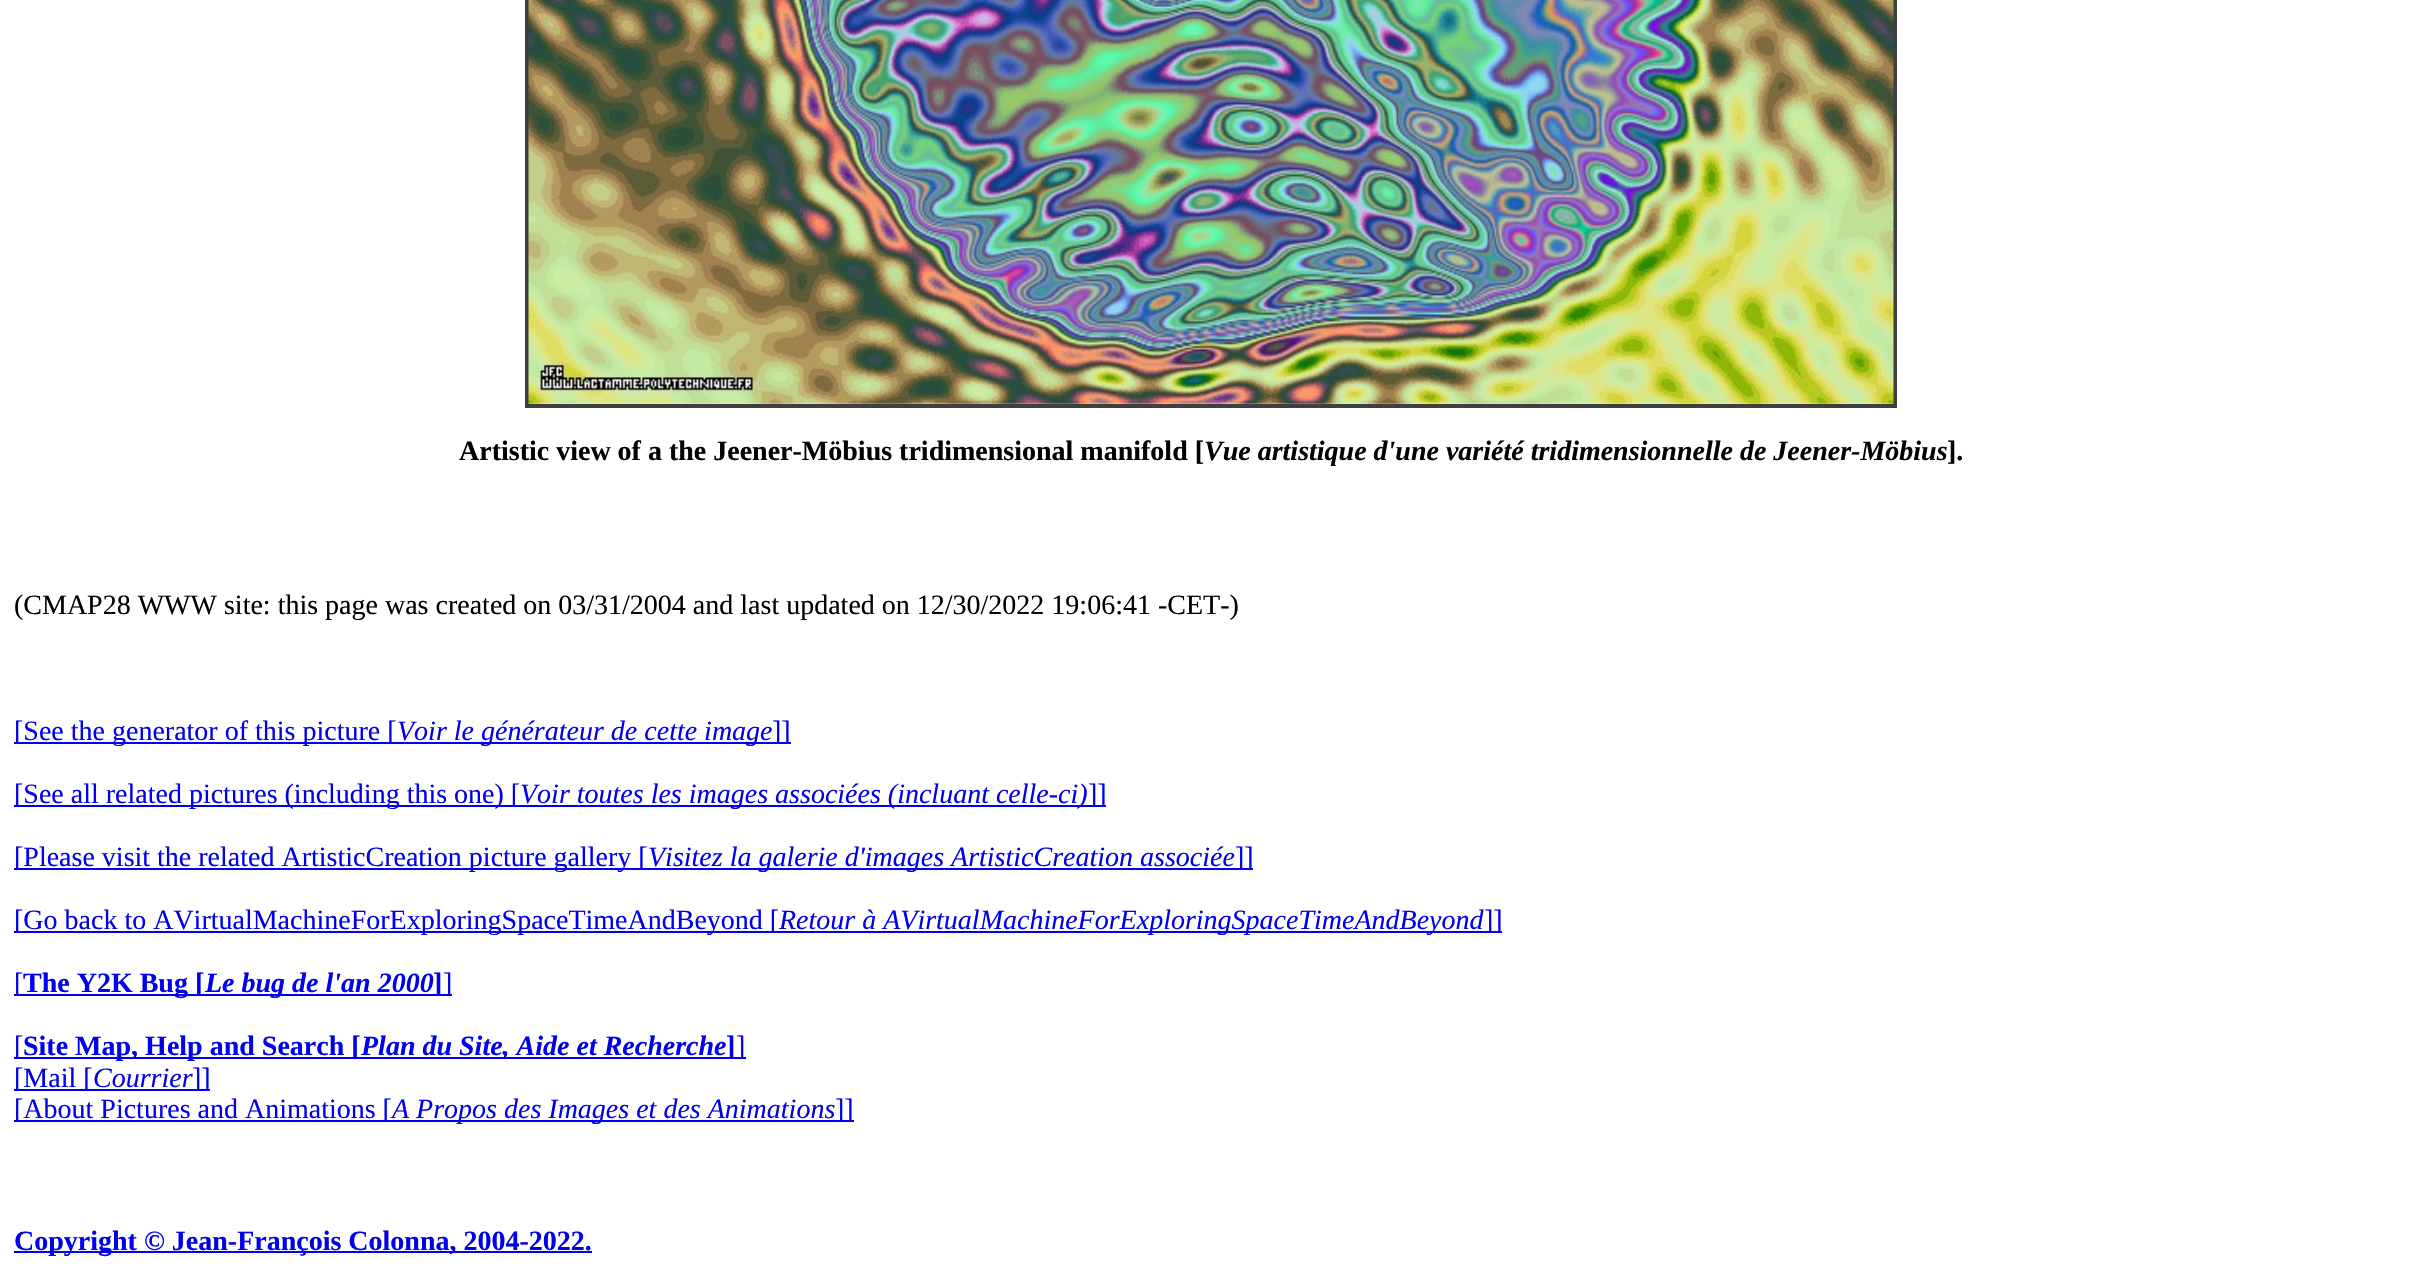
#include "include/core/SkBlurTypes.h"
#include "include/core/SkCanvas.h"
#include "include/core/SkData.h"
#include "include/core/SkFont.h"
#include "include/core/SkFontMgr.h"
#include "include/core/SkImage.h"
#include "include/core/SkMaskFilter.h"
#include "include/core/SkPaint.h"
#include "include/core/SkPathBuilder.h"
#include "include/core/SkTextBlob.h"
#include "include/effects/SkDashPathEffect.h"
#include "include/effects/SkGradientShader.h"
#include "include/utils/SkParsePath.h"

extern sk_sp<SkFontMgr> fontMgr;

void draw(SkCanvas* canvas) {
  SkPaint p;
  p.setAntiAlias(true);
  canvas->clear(SK_ColorWHITE);
  p.setStyle(SkPaint::kStroke_Style);
  p.setStrokeWidth(4);
  p.setColor(SkColorSetRGB(63, 63, 63));
  canvas->drawRect(SkRect::MakeLTRB(527, -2, 1895, 406), p);
  canvas->drawImageRect(SkImages::DeferredFromEncodedData(SkData::MakeFromFileName("images/1.png")), SkRect::MakeLTRB(528, 0, 1894, 404), SkSamplingOptions());
  p.setStyle(SkPaint::kFill_Style);
  p.setColor(SkColorSetRGB(0, 0, 238));
  canvas->drawRect(SkRect::MakeLTRB(14, 742, 791, 744), p);
  canvas->drawRect(SkRect::MakeLTRB(14, 805, 1106, 807), p);
  canvas->drawRect(SkRect::MakeLTRB(14, 868, 1253, 870), p);
  canvas->drawRect(SkRect::MakeLTRB(14, 931, 1502, 933), p);
  canvas->drawRect(SkRect::MakeLTRB(14, 994, 452, 996), p);
  canvas->drawRect(SkRect::MakeLTRB(14, 1057, 746, 1059), p);
  canvas->drawRect(SkRect::MakeLTRB(14, 1089, 210, 1091), p);
  canvas->drawRect(SkRect::MakeLTRB(14, 1120, 854, 1122), p);
  canvas->drawRect(SkRect::MakeLTRB(14, 1251, 592, 1253), p);
  SkFont font1(fontMgr->matchFamilyStyle("Liberation Serif", SkFontStyle::Bold()), 28);
  font1.setSubpixel(true);
  p.setColor(SK_ColorBLACK);
  canvas->drawString("Artistic view of a the Jeener-Möbius tridimensional manifold [", 459, 460, font1, p);
  SkFont font2(fontMgr->matchFamilyStyle("Liberation Serif", SkFontStyle::BoldItalic()), 28);
  font2.setSubpixel(true);
  canvas->drawString("Vue artistique d'une variété tridimensionnelle de Jeener-Möbius", 1204, 460, font2, p);
  canvas->drawString("].", 1947, 460, font1, p);
  SkFont font3(fontMgr->matchFamilyStyle("Liberation Serif", SkFontStyle::Normal()), 28);
  font3.setSubpixel(true);
  canvas->drawString("(CMAP28 WWW site: this page was created on 03/31/2004 and last updated on 12/30/2022 19:06:41 -CET-)", 14, 614, font3, p);
  p.setColor(SkColorSetRGB(0, 0, 238));
  canvas->drawString("[See the generator of this picture [", 14, 740, font3, p);
  SkFont font4(fontMgr->matchFamilyStyle("Liberation Serif", SkFontStyle::Italic()), 28);
  font4.setSubpixel(true);
  canvas->drawString("Voir le générateur de cette image", 397, 740, font4, p);
  canvas->drawString("]]", 772, 740, font3, p);
  canvas->drawString("[See all related pictures (including this one) [", 14, 803, font3, p);
  canvas->drawString("Voir toutes les images associées (incluant celle-ci)", 520, 803, font4, p);
  canvas->drawString("]]", 1088, 803, font3, p);
  canvas->drawString("[Please visit the related ArtisticCreation picture gallery [", 14, 866, font3, p);
  canvas->drawString("Visitez la galerie d'images ArtisticCreation associée", 648, 866, font4, p);
  canvas->drawString("]]", 1235, 866, font3, p);
  canvas->drawString("[Go back to AVirtualMachineForExploringSpaceTimeAndBeyond [", 14, 929, font3, p);
  canvas->drawString("Retour à AVirtualMachineForExploringSpaceTimeAndBeyond", 779, 929, font4, p);
  canvas->drawString("]]", 1484, 929, font3, p);
  canvas->drawString("[", 14, 992, font3, p);
  canvas->drawString("The Y2K Bug [", 23, 992, font1, p);
  canvas->drawString("Le bug de l'an 2000", 205, 992, font2, p);
  canvas->drawString("]", 433, 992, font1, p);
  canvas->drawString("]", 443, 992, font3, p);
  canvas->drawString("[", 14, 1055, font3, p);
  canvas->drawString("Site Map, Help and Search [", 23, 1055, font1, p);
  canvas->drawString("Plan du Site, Aide et Recherche", 361, 1055, font2, p);
  canvas->drawString("]", 726, 1055, font1, p);
  canvas->drawString("]", 736, 1055, font3, p);
  canvas->drawString("[Mail [", 14, 1087, font3, p);
  canvas->drawString("Courrier", 93, 1087, font4, p);
  canvas->drawString("]]", 192, 1087, font3, p);
  canvas->drawString("[About Pictures and Animations [", 14, 1118, font3, p);
  canvas->drawString("A Propos des Images et des Animations", 392, 1118, font4, p);
  canvas->drawString("]]", 835, 1118, font3, p);
  canvas->drawString("Copyright © Jean-François Colonna, 2004-2022.", 14, 1250, font1, p);
}
